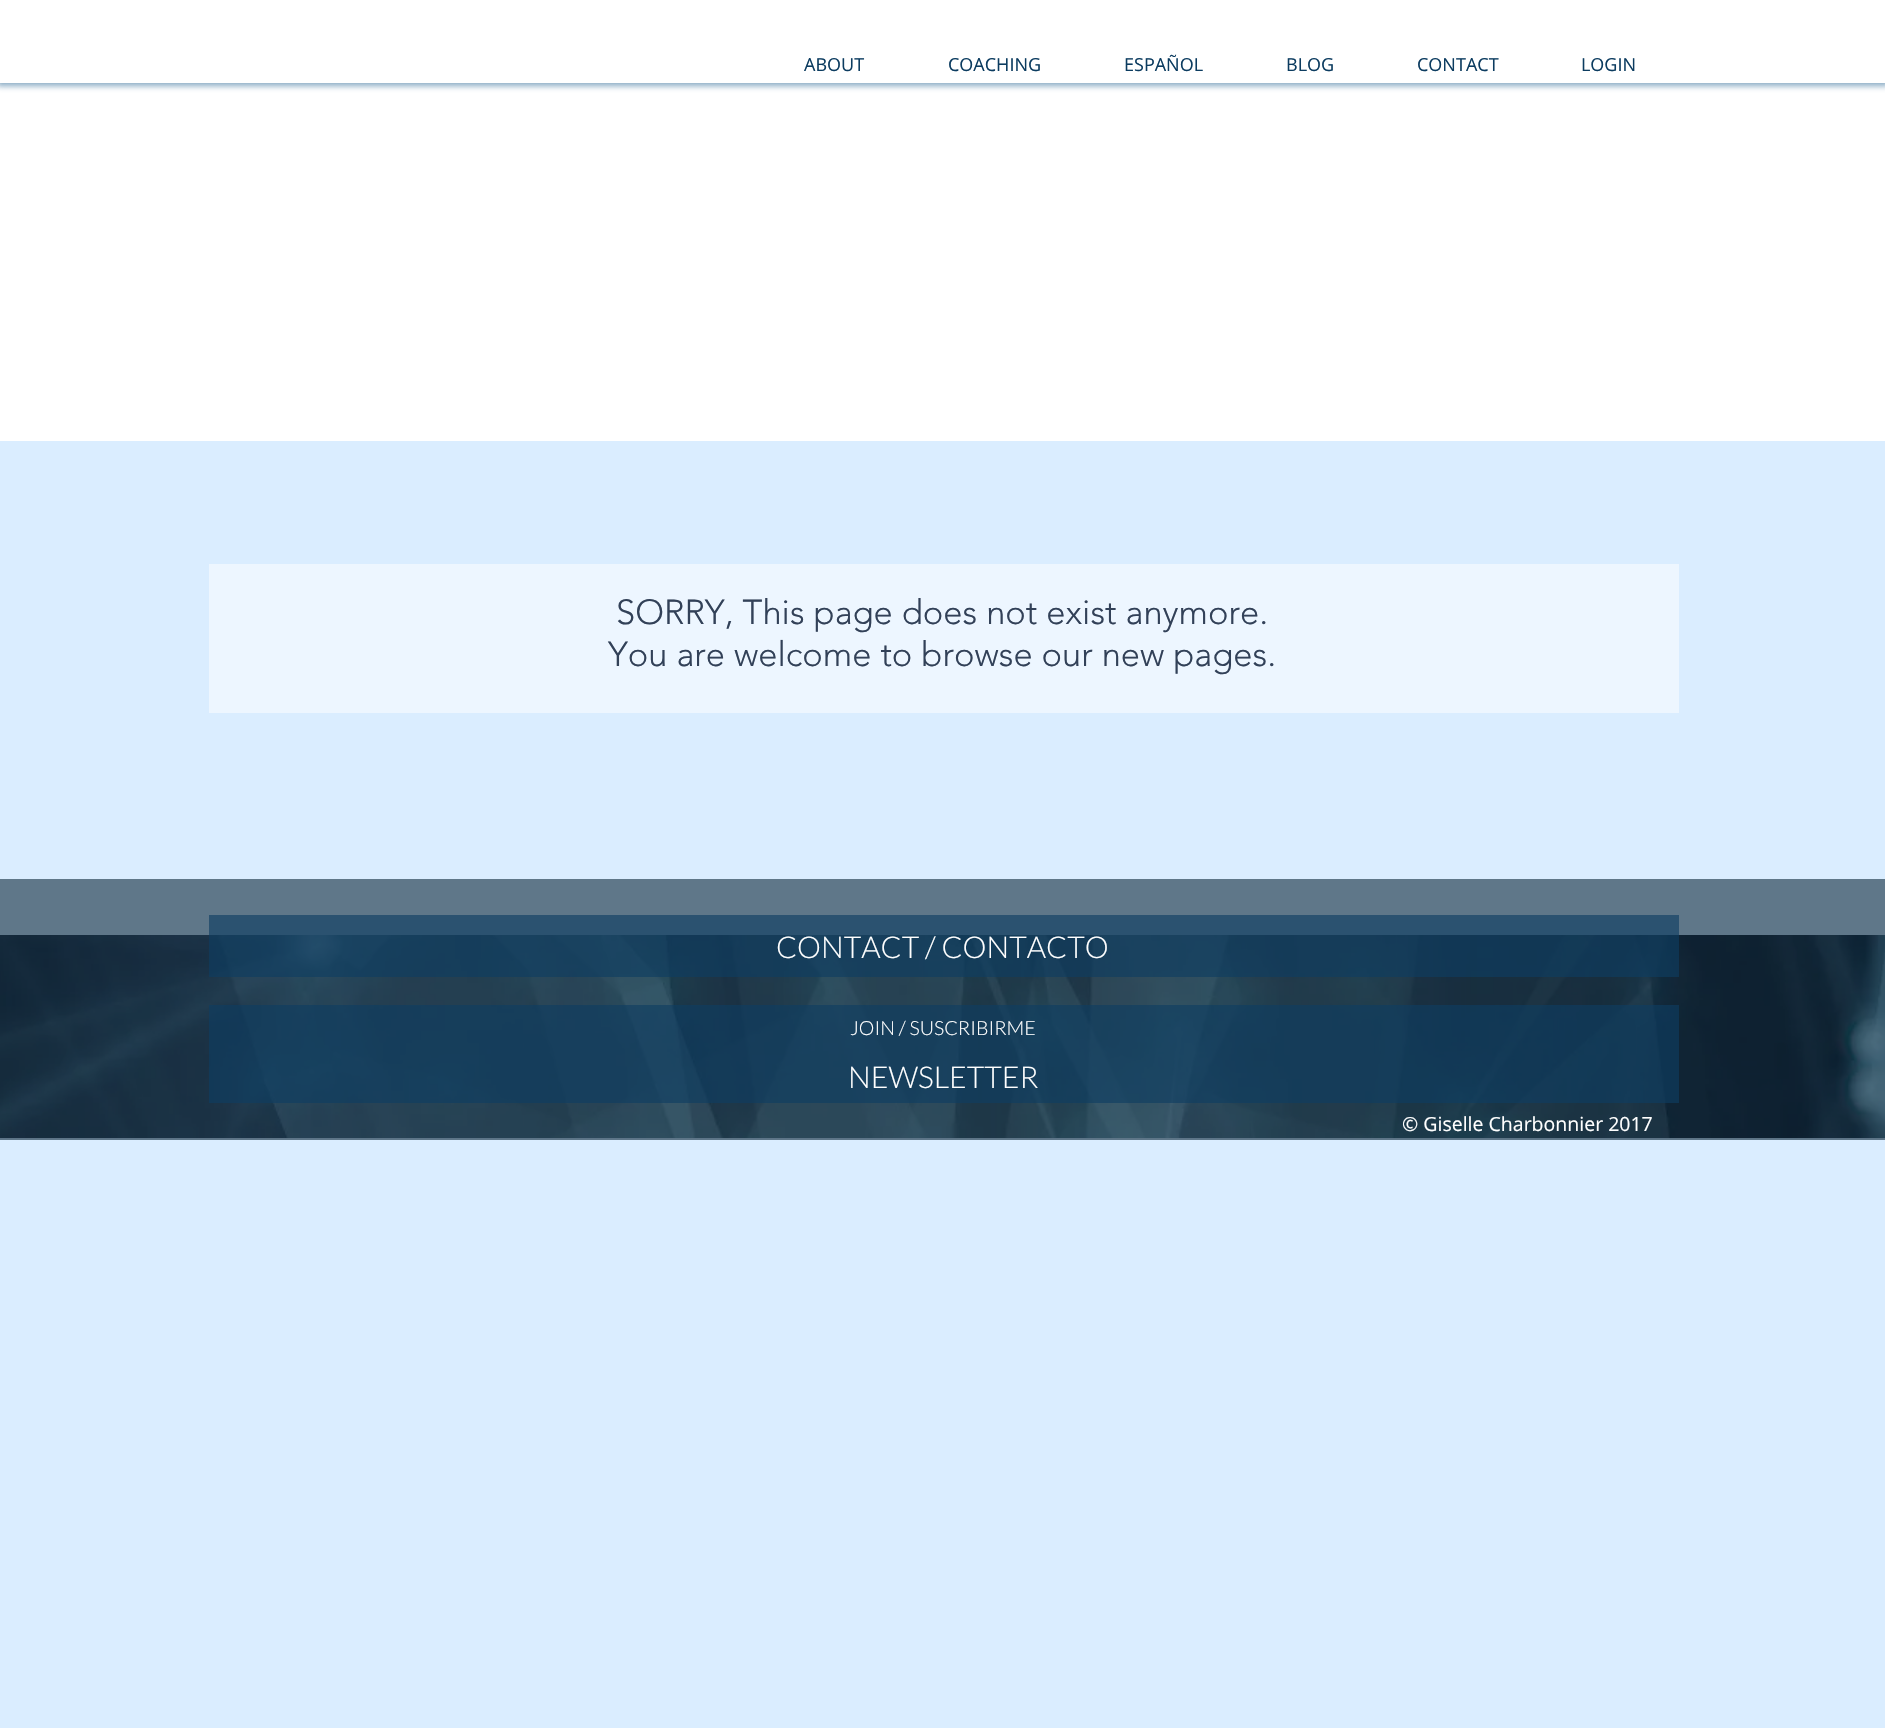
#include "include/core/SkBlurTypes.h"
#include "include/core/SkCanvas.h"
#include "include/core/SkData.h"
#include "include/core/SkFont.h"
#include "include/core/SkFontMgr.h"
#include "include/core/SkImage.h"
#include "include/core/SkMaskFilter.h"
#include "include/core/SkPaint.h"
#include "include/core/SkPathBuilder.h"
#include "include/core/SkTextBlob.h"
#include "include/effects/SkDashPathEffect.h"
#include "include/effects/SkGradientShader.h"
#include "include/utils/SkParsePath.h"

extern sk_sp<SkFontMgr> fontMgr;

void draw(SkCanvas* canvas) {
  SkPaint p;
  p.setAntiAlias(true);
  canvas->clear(SkColorSetRGB(218, 237, 255));
  p.setColor(SK_ColorWHITE);
  canvas->drawRect(SkRect::MakeLTRB(0, 83, 1885, 441), p);
  p.setColor(SkColorSetARGB(153, 57, 114, 155));
  p.setMaskFilter(SkMaskFilter::MakeBlur(kNormal_SkBlurStyle, 3));
  canvas->drawRect(SkRect::MakeLTRB(-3, -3, 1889, 86), p);
  p.setMaskFilter(nullptr);
  p.setColor(SK_ColorWHITE);
  canvas->drawRect(SkRect::MakeLTRB(0, 0, 1885, 83), p);
  p.setColor(SkColorSetRGB(237, 246, 255));
  canvas->drawRect(SkRect::MakeLTRB(209, 564, 1679, 713), p);
  p.setColor(SkColorSetRGB(95, 119, 137));
  canvas->drawRect(SkRect::MakeLTRB(0, 879, 1885, 1140), p);
  canvas->drawImageRect(SkImages::DeferredFromEncodedData(SkData::MakeFromFileName("images/1.png")), SkRect::MakeLTRB(0, 935, 1885, 1139), SkSamplingOptions());
  p.setColor(SkColorSetARGB(161, 12, 60, 96));
  canvas->drawRect(SkRect::MakeLTRB(209, 915, 1679, 977), p);
  canvas->drawRect(SkRect::MakeLTRB(209, 1005, 1679, 1050), p);
  canvas->drawRect(SkRect::MakeLTRB(209, 1050, 1679, 1103), p);
  SkFont font1(fontMgr->matchFamilyStyle("Open Sans", SkFontStyle::Normal()), 18);
  font1.setSubpixel(true);
  p.setColor(SkColorSetRGB(12, 60, 96));
  canvas->drawString("ABOUT", 804, 71, font1, p);
  canvas->drawString("COACHING", 948, 71, font1, p);
  canvas->drawString("ESPAÑOL", 1124, 71, font1, p);
  canvas->drawString("BLOG", 1286, 71, font1, p);
  canvas->drawString("CONTACT", 1417, 71, font1, p);
  canvas->drawString("LOGIN", 1581, 71, font1, p);
  SkFont font2(fontMgr->matchFamilyStyle("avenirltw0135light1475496", SkFontStyle(300, SkFontStyle::kNormal_Width, SkFontStyle::kUpright_Slant)), 34.5f);
  font2.setSubpixel(true);
  p.setColor(SkColorSetRGB(50, 65, 88));
  canvas->drawString("SORRY, This page does not exist anymore.", 616, 624, font2, p);
  canvas->drawString("You are welcome to browse our new pages.", 608, 666, font2, p);
  SkFont font3(fontMgr->matchFamilyStyle("Lato", SkFontStyle(300, SkFontStyle::kNormal_Width, SkFontStyle::kUpright_Slant)), 30);
  font3.setSubpixel(true);
  p.setColor(SK_ColorWHITE);
  canvas->drawString("CONTACT / CONTACTO", 776, 958, font3, p);
  SkFont font4(fontMgr->matchFamilyStyle("Lato", SkFontStyle(300, SkFontStyle::kNormal_Width, SkFontStyle::kUpright_Slant)), 19.5f);
  font4.setSubpixel(true);
  canvas->drawString("JOIN / SUSCRIBIRME", 850, 1035, font4, p);
  canvas->drawString("NEWSLETTER", 848, 1088, font3, p);
  SkFont font5(fontMgr->matchFamilyStyle("Open Sans", SkFontStyle::Normal()), 19.5f);
  font5.setSubpixel(true);
  canvas->drawString("© Giselle Charbonnier 2017", 1402, 1131, font5, p);
}
